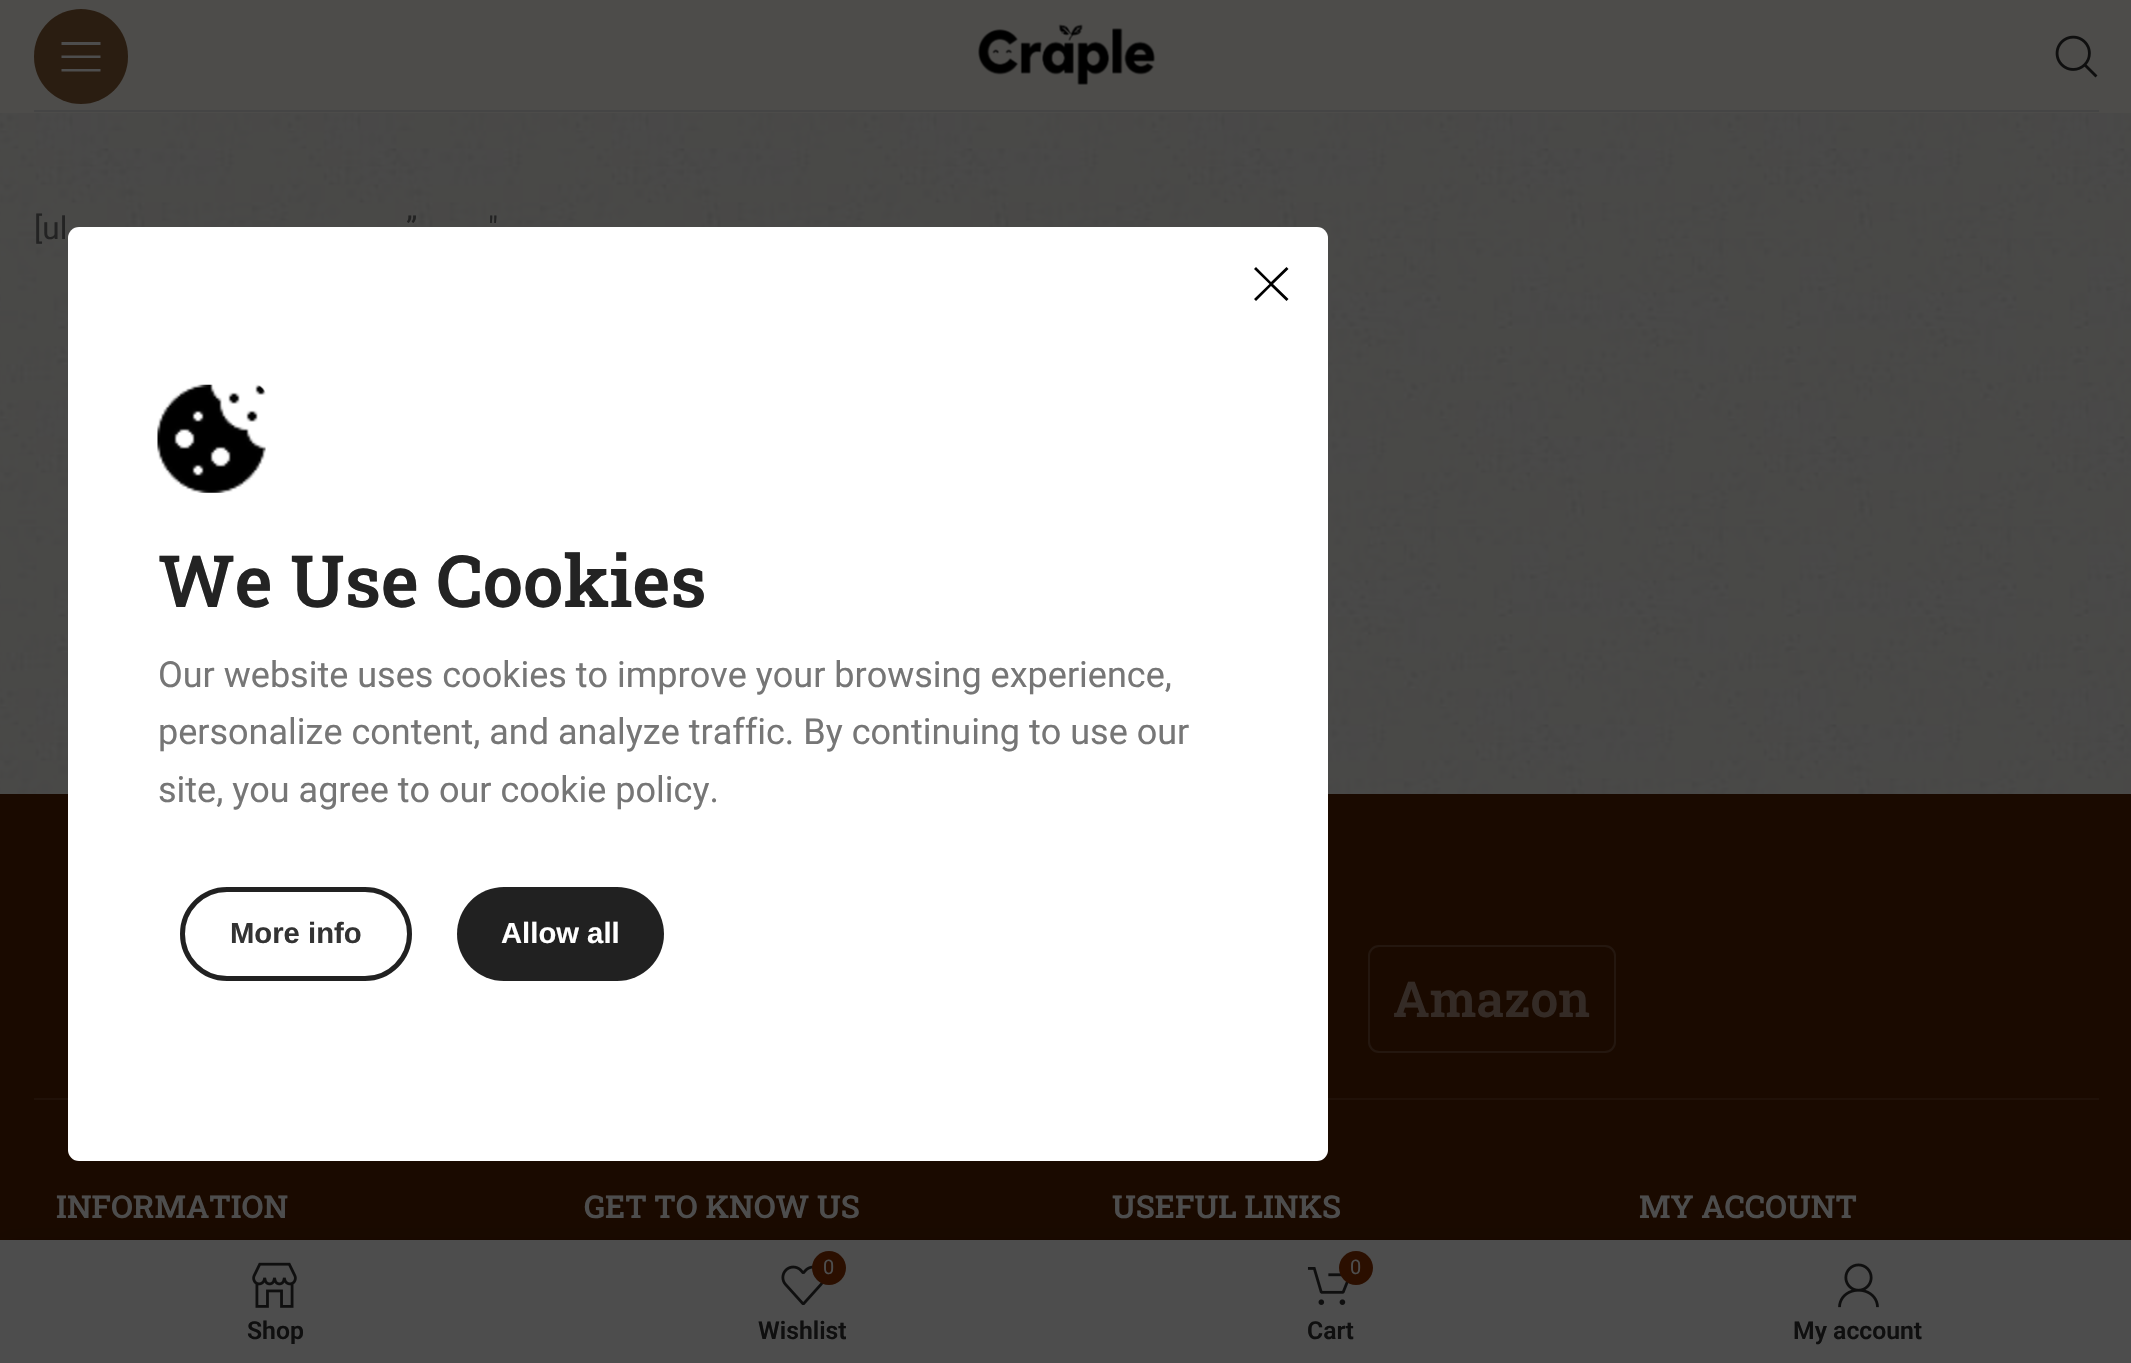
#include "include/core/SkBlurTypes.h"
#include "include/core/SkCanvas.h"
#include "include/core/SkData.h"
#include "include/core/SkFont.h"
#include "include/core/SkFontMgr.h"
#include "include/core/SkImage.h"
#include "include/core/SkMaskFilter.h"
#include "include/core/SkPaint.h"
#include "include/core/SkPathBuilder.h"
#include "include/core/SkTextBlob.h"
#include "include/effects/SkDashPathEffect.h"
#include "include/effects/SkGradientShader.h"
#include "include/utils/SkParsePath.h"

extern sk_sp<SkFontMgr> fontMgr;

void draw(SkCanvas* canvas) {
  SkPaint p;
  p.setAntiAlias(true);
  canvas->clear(SK_ColorWHITE);
  p.setColor(SkColorSetRGB(77, 76, 74));
  canvas->drawRect(SkRect::MakeLTRB(0, 0, 2131, 113), p);
  p.setColor(SkColorSetRGB(69, 69, 69));
  canvas->drawRect(SkRect::MakeLTRB(34, 110, 2099, 112), p);
  p.setColor(SkColorSetRGB(42, 29, 17));
  canvas->drawRoundRect(SkRect::MakeLTRB(34, 9, 128, 104), 47, 47, p);
  p.setColor(SkColorSetRGB(77, 77, 77));
  canvas->drawPath(SkPathBuilder().moveTo(61.5f, 45).lineTo(100.5f, 45).lineTo(100.5f, 42).lineTo(61.5f, 42).close().moveTo(61.5f, 58).lineTo(100.5f, 58).lineTo(100.5f, 55.5f).lineTo(61.5f, 55.5f).close().moveTo(61.5f, 71.5f).lineTo(100.5f, 71.5f).lineTo(100.5f, 69).lineTo(61.5f, 69).close().detach(), p);
  canvas->drawImageRect(SkImages::DeferredFromEncodedData(SkData::MakeFromFileName("images/1.png")), SkRect::MakeLTRB(978, 24, 1156, 85), SkSamplingOptions());
  canvas->drawImageRect(SkImages::DeferredFromEncodedData(SkData::MakeFromFileName("images/2.png")), SkRect::MakeLTRB(2055, 35, 2098, 78), SkSamplingOptions());
  canvas->drawImageRect(SkImages::DeferredFromEncodedData(SkData::MakeFromFileName("images/3.png")), SkRect::MakeLTRB(0, 113, 2131, 794), SkSamplingOptions());
  p.setColor(SkColorSetRGB(26, 10, 0));
  canvas->drawRect(SkRect::MakeLTRB(0, 794, 2131, 1240), p);
  p.setColor(SkColorSetRGB(32, 17, 8));
  canvas->drawRect(SkRect::MakeLTRB(34, 1098, 2099, 1100), p);
  p.setStyle(SkPaint::kStroke_Style);
  p.setStrokeWidth(2);
  p.setColor(SkColorSetRGB(36, 23, 15));
  canvas->drawRoundRect(SkRect::MakeLTRB(1369, 946, 1615, 1052), 10, 10, p);
  p.setStyle(SkPaint::kFill_Style);
  p.setColor(SK_ColorWHITE);
  canvas->drawRoundRect(SkRect::MakeLTRB(68, 227, 1328, 1161), 11, 11, p);
  p.setColor(SK_ColorBLACK);
  canvas->drawPath(SkPathBuilder().moveTo(1254, 269).lineTo(1269.5f, 284).lineTo(1254, 299).lineTo(1256, 301).lineTo(1271, 286).lineTo(1286.5f, 301).lineTo(1288.5f, 299).lineTo(1273, 284).lineTo(1288.5f, 269).lineTo(1286.5f, 267).lineTo(1271, 282).lineTo(1256, 267).close().detach(), p);
  canvas->drawImageRect(SkImages::DeferredFromEncodedData(SkData::MakeFromFileName("images/4.png")), SkRect::MakeLTRB(157, 384, 266, 493), SkSamplingOptions());
  p.setStyle(SkPaint::kStroke_Style);
  p.setStrokeWidth(5);
  p.setColor(SkColorSetRGB(33, 33, 33));
  canvas->drawRoundRect(SkRect::MakeLTRB(182.5f, 889.5f, 409.5f, 978.5f), 44.5f, 44.5f, p);
  p.setStyle(SkPaint::kFill_Style);
  canvas->drawRoundRect(SkRect::MakeLTRB(457, 887, 664, 981), 47, 47, p);
  p.setColor(SkColorSetARGB(31, 0, 0, 0));
  p.setMaskFilter(SkMaskFilter::MakeBlur(kNormal_SkBlurStyle, 10));
  canvas->drawRect(SkRect::MakeLTRB(0, 1240, 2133, 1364), p);
  p.setMaskFilter(nullptr);
  p.setColor(SkColorSetRGB(77, 77, 77));
  canvas->drawRect(SkRect::MakeLTRB(0, 1240, 2131, 1363), p);
  canvas->drawImageRect(SkImages::DeferredFromEncodedData(SkData::MakeFromFileName("images/5.png")), SkRect::MakeLTRB(252, 1262, 297, 1308), SkSamplingOptions());
  canvas->drawImageRect(SkImages::DeferredFromEncodedData(SkData::MakeFromFileName("images/6.png")), SkRect::MakeLTRB(781, 1265, 824, 1305), SkSamplingOptions());
  p.setColor(SkColorSetRGB(43, 15, 0));
  canvas->drawCircle(829, 1268, 17, p);
  canvas->drawImageRect(SkImages::DeferredFromEncodedData(SkData::MakeFromFileName("images/7.png")), SkRect::MakeLTRB(1307, 1267, 1349, 1305), SkSamplingOptions());
  canvas->drawCircle(1356, 1268, 17, p);
  canvas->drawImageRect(SkImages::DeferredFromEncodedData(SkData::MakeFromFileName("images/8.png")), SkRect::MakeLTRB(1838, 1263, 1879, 1308), SkSamplingOptions());
  SkFont font1(fontMgr->matchFamilyStyle("Roboto", SkFontStyle::Normal()), 31.5f);
  font1.setSubpixel(true);
  p.setColor(SkColorSetRGB(35, 35, 35));
  canvas->drawString("[ul", 34, 239, font1, p);
  canvas->drawString("”", 406, 239, font1, p);
  canvas->drawString("″", 488, 239, font1, p);
  SkFont font2(fontMgr->matchFamilyStyle("Roboto Slab", SkFontStyle(600, SkFontStyle::kNormal_Width, SkFontStyle::kUpright_Slant)), 49.5f);
  font2.setSubpixel(true);
  p.setColor(SkColorSetRGB(52, 43, 38));
  canvas->drawString("Amazon", 1393, 1017, font2, p);
  SkFont font3(fontMgr->matchFamilyStyle("Roboto Slab", SkFontStyle(600, SkFontStyle::kNormal_Width, SkFontStyle::kUpright_Slant)), 31.5f);
  font3.setSubpixel(true);
  p.setColor(SkColorSetRGB(77, 77, 77));
  canvas->drawString("INFORMATION", 56, 1218, font3, p);
  canvas->drawString("GET TO KNOW US", 584, 1218, font3, p);
  canvas->drawString("USEFUL LINKS", 1112, 1218, font3, p);
  canvas->drawString("MY ACCOUNT", 1639, 1218, font3, p);
  SkFont font4(fontMgr->matchFamilyStyle("Roboto Slab", SkFontStyle(600, SkFontStyle::kNormal_Width, SkFontStyle::kUpright_Slant)), 72);
  font4.setSubpixel(true);
  p.setColor(SkColorSetRGB(35, 35, 35));
  canvas->drawString("We Use Cookies", 158, 607, font4, p);
  SkFont font5(fontMgr->matchFamilyStyle("Roboto", SkFontStyle::Normal()), 36);
  font5.setSubpixel(true);
  p.setColor(SkColorSetRGB(118, 118, 118));
  canvas->drawString("Our website uses cookies to improve your browsing experience,", 158, 687, font5, p);
  canvas->drawString("personalize content, and analyze traffic. By continuing to use our", 158, 744, font5, p);
  canvas->drawString("site, you agree to our cookie policy.", 158, 802, font5, p);
  SkFont font6(fontMgr->matchFamilyStyle("Liberation Sans", SkFontStyle::Bold()), 29.25f);
  font6.setSubpixel(true);
  p.setColor(SkColorSetRGB(51, 51, 51));
  canvas->drawString("More info", 230, 943, font6, p);
  p.setColor(SK_ColorWHITE);
  canvas->drawString("Allow all", 501, 943, font6, p);
  SkFont font7(fontMgr->matchFamilyStyle("Roboto", SkFontStyle(600, SkFontStyle::kNormal_Width, SkFontStyle::kUpright_Slant)), 24.75f);
  font7.setSubpixel(true);
  p.setColor(SkColorSetRGB(15, 15, 15));
  canvas->drawString("Shop", 247, 1339, font7, p);
  SkFont font8(fontMgr->matchFamilyStyle("Roboto", SkFontStyle::Normal()), 20);
  font8.setSubpixel(true);
  p.setColor(SkColorSetRGB(77, 77, 77));
  canvas->drawString("0", 823, 1274, font8, p);
  p.setColor(SkColorSetRGB(15, 15, 15));
  canvas->drawString("Wishlist", 758, 1339, font7, p);
  p.setColor(SkColorSetRGB(77, 77, 77));
  canvas->drawString("0", 1350, 1274, font8, p);
  p.setColor(SkColorSetRGB(15, 15, 15));
  canvas->drawString("Cart", 1307, 1339, font7, p);
  canvas->drawString("My account", 1793, 1339, font7, p);
}
